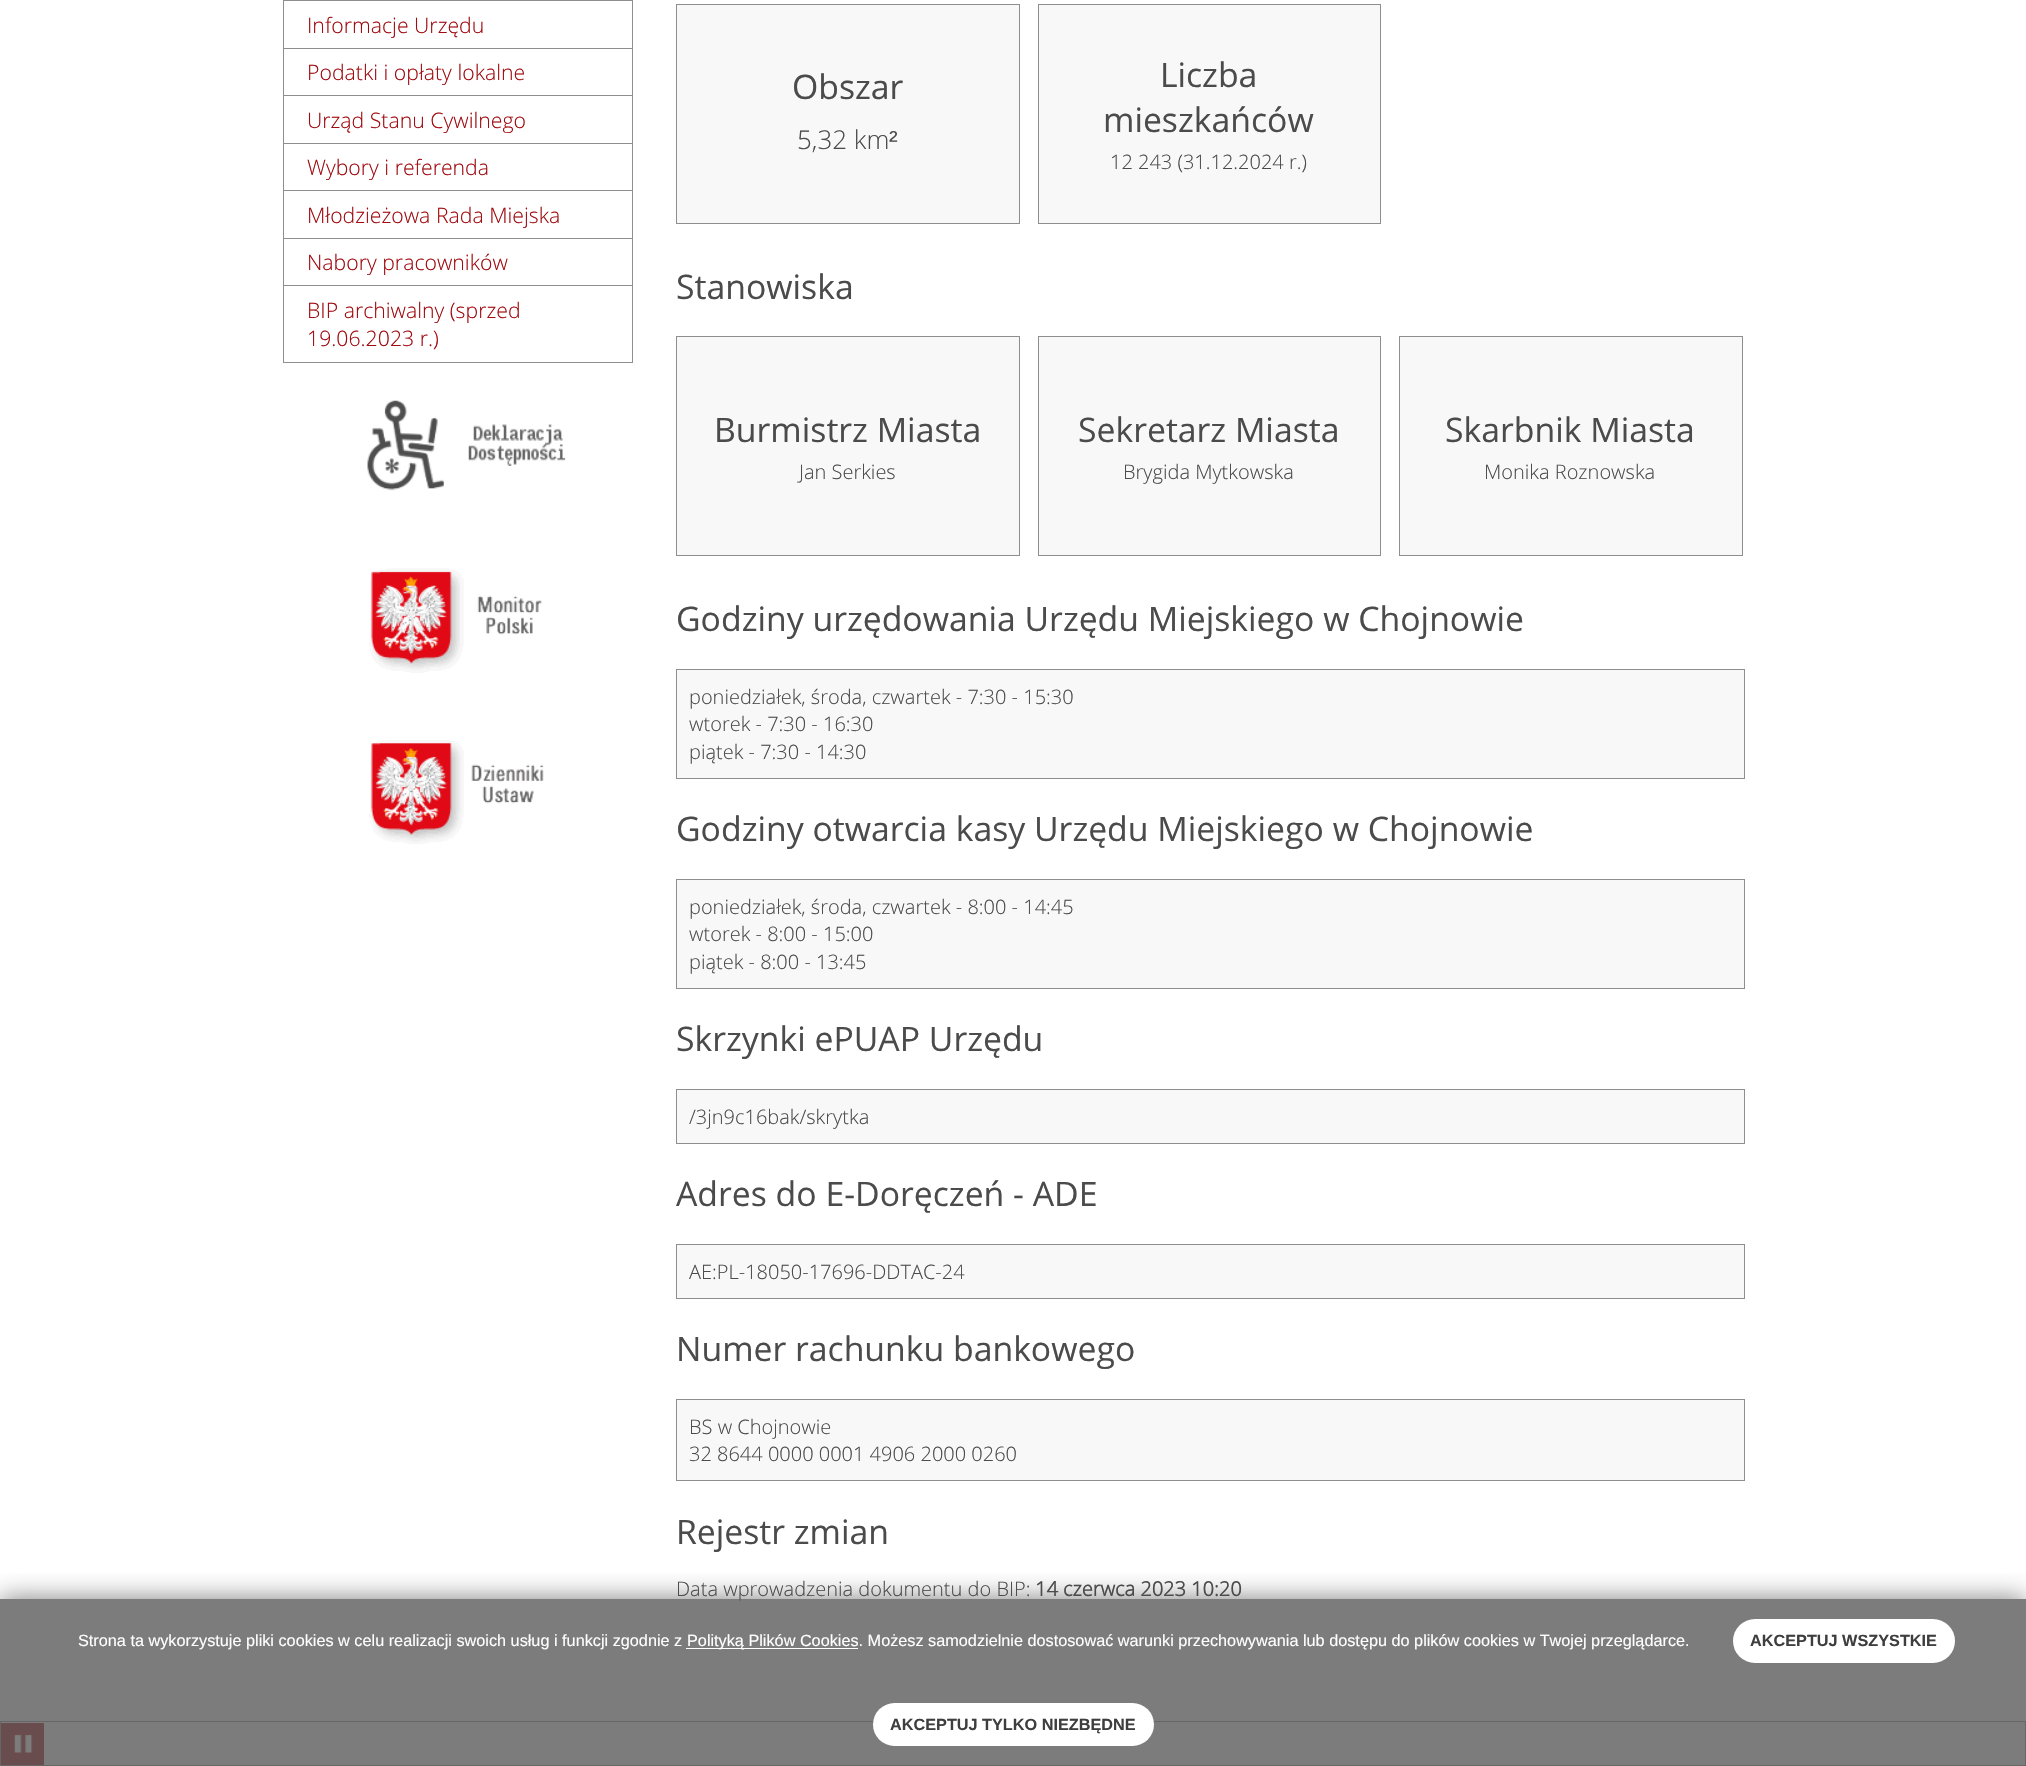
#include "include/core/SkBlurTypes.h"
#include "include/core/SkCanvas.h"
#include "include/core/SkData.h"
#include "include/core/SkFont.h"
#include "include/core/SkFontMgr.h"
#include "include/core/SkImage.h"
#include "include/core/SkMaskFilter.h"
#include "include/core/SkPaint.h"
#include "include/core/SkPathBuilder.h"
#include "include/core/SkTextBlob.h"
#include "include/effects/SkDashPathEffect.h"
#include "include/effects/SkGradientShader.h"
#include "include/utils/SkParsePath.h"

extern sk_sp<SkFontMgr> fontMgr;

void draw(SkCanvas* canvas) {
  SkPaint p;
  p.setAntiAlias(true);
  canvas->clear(SK_ColorWHITE);
  p.setStyle(SkPaint::kStroke_Style);
  p.setStrokeWidth(1);
  p.setColor(SkColorSetRGB(142, 142, 142));
  canvas->drawRect(SkRect::MakeLTRB(283.5f, 0.5f, 632.5f, 48.5f), p);
  canvas->drawRect(SkRect::MakeLTRB(283.5f, 48.5f, 632.5f, 95.5f), p);
  canvas->drawRect(SkRect::MakeLTRB(283.5f, 95.5f, 632.5f, 143.5f), p);
  canvas->drawRect(SkRect::MakeLTRB(283.5f, 143.5f, 632.5f, 190.5f), p);
  canvas->drawRect(SkRect::MakeLTRB(283.5f, 190.5f, 632.5f, 238.5f), p);
  canvas->drawRect(SkRect::MakeLTRB(283.5f, 238.5f, 632.5f, 285.5f), p);
  canvas->drawRect(SkRect::MakeLTRB(283.5f, 285.5f, 632.5f, 362.5f), p);
  canvas->drawImageRect(SkImages::DeferredFromEncodedData(SkData::MakeFromFileName("images/1.png")), SkRect::MakeLTRB(367, 400, 566, 491), SkSamplingOptions());
  canvas->drawImageRect(SkImages::DeferredFromEncodedData(SkData::MakeFromFileName("images/2.png")), SkRect::MakeLTRB(369, 568, 542, 673), SkSamplingOptions());
  canvas->drawImageRect(SkImages::DeferredFromEncodedData(SkData::MakeFromFileName("images/3.png")), SkRect::MakeLTRB(369, 740, 544, 844), SkSamplingOptions());
  p.setStyle(SkPaint::kFill_Style);
  p.setColor(SkColorSetRGB(249, 248, 248));
  canvas->drawRect(SkRect::MakeLTRB(676.5f, 4.5f, 1019.5f, 223.5f), p);
  p.setStyle(SkPaint::kStroke_Style);
  p.setColor(SkColorSetRGB(142, 142, 142));
  canvas->drawRect(SkRect::MakeLTRB(676.5f, 4.5f, 1019.5f, 223.5f), p);
  p.setStyle(SkPaint::kFill_Style);
  p.setColor(SkColorSetRGB(249, 248, 248));
  canvas->drawRect(SkRect::MakeLTRB(1038.5f, 4.5f, 1380.5f, 223.5f), p);
  p.setStyle(SkPaint::kStroke_Style);
  p.setColor(SkColorSetRGB(142, 142, 142));
  canvas->drawRect(SkRect::MakeLTRB(1038.5f, 4.5f, 1380.5f, 223.5f), p);
  p.setStyle(SkPaint::kFill_Style);
  p.setColor(SkColorSetRGB(249, 248, 248));
  canvas->drawRect(SkRect::MakeLTRB(676.5f, 336.5f, 1019.5f, 555.5f), p);
  p.setStyle(SkPaint::kStroke_Style);
  p.setColor(SkColorSetRGB(142, 142, 142));
  canvas->drawRect(SkRect::MakeLTRB(676.5f, 336.5f, 1019.5f, 555.5f), p);
  p.setStyle(SkPaint::kFill_Style);
  p.setColor(SkColorSetRGB(249, 248, 248));
  canvas->drawRect(SkRect::MakeLTRB(1038.5f, 336.5f, 1380.5f, 555.5f), p);
  p.setStyle(SkPaint::kStroke_Style);
  p.setColor(SkColorSetRGB(142, 142, 142));
  canvas->drawRect(SkRect::MakeLTRB(1038.5f, 336.5f, 1380.5f, 555.5f), p);
  p.setStyle(SkPaint::kFill_Style);
  p.setColor(SkColorSetRGB(249, 248, 248));
  canvas->drawRect(SkRect::MakeLTRB(1399.5f, 336.5f, 1742.5f, 555.5f), p);
  p.setStyle(SkPaint::kStroke_Style);
  p.setColor(SkColorSetRGB(142, 142, 142));
  canvas->drawRect(SkRect::MakeLTRB(1399.5f, 336.5f, 1742.5f, 555.5f), p);
  p.setStyle(SkPaint::kFill_Style);
  p.setColor(SkColorSetRGB(249, 248, 248));
  canvas->drawRect(SkRect::MakeLTRB(676.5f, 669.5f, 1744.5f, 778.5f), p);
  p.setStyle(SkPaint::kStroke_Style);
  p.setColor(SkColorSetRGB(142, 142, 142));
  canvas->drawRect(SkRect::MakeLTRB(676.5f, 669.5f, 1744.5f, 778.5f), p);
  p.setStyle(SkPaint::kFill_Style);
  p.setColor(SkColorSetRGB(249, 248, 248));
  canvas->drawRect(SkRect::MakeLTRB(676.5f, 879.5f, 1744.5f, 988.5f), p);
  p.setStyle(SkPaint::kStroke_Style);
  p.setColor(SkColorSetRGB(142, 142, 142));
  canvas->drawRect(SkRect::MakeLTRB(676.5f, 879.5f, 1744.5f, 988.5f), p);
  p.setStyle(SkPaint::kFill_Style);
  p.setColor(SkColorSetRGB(249, 248, 248));
  canvas->drawRect(SkRect::MakeLTRB(676.5f, 1089.5f, 1744.5f, 1143.5f), p);
  p.setStyle(SkPaint::kStroke_Style);
  p.setColor(SkColorSetRGB(142, 142, 142));
  canvas->drawRect(SkRect::MakeLTRB(676.5f, 1089.5f, 1744.5f, 1143.5f), p);
  p.setStyle(SkPaint::kFill_Style);
  p.setColor(SkColorSetRGB(249, 248, 248));
  canvas->drawRect(SkRect::MakeLTRB(676.5f, 1244.5f, 1744.5f, 1298.5f), p);
  p.setStyle(SkPaint::kStroke_Style);
  p.setColor(SkColorSetRGB(142, 142, 142));
  canvas->drawRect(SkRect::MakeLTRB(676.5f, 1244.5f, 1744.5f, 1298.5f), p);
  p.setStyle(SkPaint::kFill_Style);
  p.setColor(SkColorSetRGB(249, 248, 248));
  canvas->drawRect(SkRect::MakeLTRB(676.5f, 1399.5f, 1744.5f, 1480.5f), p);
  p.setStyle(SkPaint::kStroke_Style);
  p.setColor(SkColorSetRGB(142, 142, 142));
  canvas->drawRect(SkRect::MakeLTRB(676.5f, 1399.5f, 1744.5f, 1480.5f), p);
  canvas->drawRect(SkRect::MakeLTRB(0.5f, 1721.5f, 2025.5f, 1765.5f), p);
  p.setStyle(SkPaint::kFill_Style);
  p.setColor(SkColorSetRGB(160, 11, 16));
  canvas->drawRect(SkRect::MakeLTRB(1, 1723, 44, 1765), p);
  canvas->drawImageRect(SkImages::DeferredFromEncodedData(SkData::MakeFromFileName("images/4.png")), SkRect::MakeLTRB(13, 1734, 33, 1753), SkSamplingOptions());
  canvas->save();
  canvas->clipRect(SkRect::MakeLTRB(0, 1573, 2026, 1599));
  p.setColor(SkColorSetRGB(124, 124, 124));
  p.setMaskFilter(SkMaskFilter::MakeBlur(kNormal_SkBlurStyle, 12.5f));
  canvas->drawRect(SkRect::MakeLTRB(0, 1599, 2026, 1766), p);
  p.setMaskFilter(nullptr);
  canvas->restore();
  SkFont font1(fontMgr->matchFamilyStyle("Open Sans", SkFontStyle(300, SkFontStyle::kNormal_Width, SkFontStyle::kUpright_Slant)), 21.25f);
  font1.setSubpixel(true);
  p.setColor(SkColorSetRGB(160, 11, 16));
  canvas->drawString("Informacje Urzędu", 307, 33, font1, p);
  canvas->drawString("Podatki i opłaty lokalne", 307, 80, font1, p);
  canvas->drawString("Urząd Stanu Cywilnego", 307, 128, font1, p);
  canvas->drawString("Wybory i referenda", 307, 175, font1, p);
  canvas->drawString("Młodzieżowa Rada Miejska", 307, 223, font1, p);
  canvas->drawString("Nabory pracowników", 307, 270, font1, p);
  canvas->drawString("BIP archiwalny (sprzed", 307, 318, font1, p);
  canvas->drawString("19.06.2023 r.)", 307, 346, font1, p);
  SkFont font2(fontMgr->matchFamilyStyle("Open Sans", SkFontStyle::Normal()), 33.75f);
  font2.setSubpixel(true);
  p.setColor(SkColorSetRGB(76, 75, 75));
  canvas->drawString("Obszar", 792, 99, font2, p);
  SkFont font3(fontMgr->matchFamilyStyle("Open Sans", SkFontStyle(300, SkFontStyle::kNormal_Width, SkFontStyle::kUpright_Slant)), 26);
  font3.setSubpixel(true);
  canvas->drawString("5,32 km", 797, 149, font3, p);
  SkFont font4(fontMgr->matchFamilyStyle("Liberation Sans", SkFontStyle::Normal()), 26);
  font4.setSubpixel(true);
  canvas->drawString("²", 889, 149, font4, p);
  canvas->drawString("Liczba", 1160, 87, font2, p);
  canvas->drawString("mieszkańców", 1103, 132, font2, p);
  SkFont font5(fontMgr->matchFamilyStyle("Open Sans", SkFontStyle(300, SkFontStyle::kNormal_Width, SkFontStyle::kUpright_Slant)), 20);
  font5.setSubpixel(true);
  canvas->drawString("12 243 (31.12.2024 r.)", 1110, 169, font5, p);
  canvas->drawString("Stanowiska", 676, 299, font2, p);
  canvas->drawString("Burmistrz Miasta", 714, 442, font2, p);
  canvas->drawString("Jan Serkies", 799, 479, font5, p);
  canvas->drawString("Sekretarz Miasta", 1078, 442, font2, p);
  canvas->drawString("Brygida Mytkowska", 1123, 479, font5, p);
  canvas->drawString("Skarbnik Miasta", 1445, 442, font2, p);
  canvas->drawString("Monika Roznowska", 1484, 479, font5, p);
  canvas->drawString("Godziny urzędowania Urzędu Miejskiego w Chojnowie", 676, 631, font2, p);
  canvas->drawString("poniedziałek, środa, czwartek - 7:30 - 15:30", 689, 704, font5, p);
  canvas->drawString("wtorek - 7:30 - 16:30", 689, 731, font5, p);
  canvas->drawString("piątek - 7:30 - 14:30", 689, 759, font5, p);
  canvas->drawString("Godziny otwarcia kasy Urzędu Miejskiego w Chojnowie", 676, 841, font2, p);
  canvas->drawString("poniedziałek, środa, czwartek - 8:00 - 14:45", 689, 914, font5, p);
  canvas->drawString("wtorek - 8:00 - 15:00", 689, 941, font5, p);
  canvas->drawString("piątek - 8:00 - 13:45", 689, 969, font5, p);
  canvas->drawString("Skrzynki ePUAP Urzędu", 676, 1051, font2, p);
  canvas->drawString("/3jn9c16bak/skrytka", 689, 1124, font5, p);
  canvas->drawString("Adres do E-Doręczeń - ADE", 676, 1206, font2, p);
  canvas->drawString("AE:PL-18050-17696-DDTAC-24", 689, 1279, font5, p);
  canvas->drawString("Numer rachunku bankowego", 676, 1361, font2, p);
  canvas->drawString("BS w Chojnowie", 689, 1434, font5, p);
  canvas->drawString("32 8644 0000 0001 4906 2000 0260", 689, 1461, font5, p);
  canvas->drawString("Rejestr zmian", 676, 1544, font2, p);
  canvas->drawString("Data wprowadzenia dokumentu do BIP:", 676, 1596, font5, p);
  SkFont font6(fontMgr->matchFamilyStyle("Open Sans", SkFontStyle::Bold()), 20);
  font6.setSubpixel(true);
  canvas->drawString("14 czerwca 2023 10:20", 1035, 1596, font6, p);
  p.setColor(SkColorSetARGB(204, 91, 91, 91));
  canvas->drawRect(SkRect::MakeLTRB(0, 1599, 2026, 1766), p);
  SkFont font7(fontMgr->matchFamilyStyle("Liberation Sans", SkFontStyle::Normal()), 16.25f);
  font7.setSubpixel(true);
  p.setColor(SK_ColorWHITE);
  canvas->drawString("Strona ta wykorzystuje pliki cookies w celu realizacji swoich usług i funkcji zgodnie z", 78, 1646, font7, p);
  canvas->drawRect(SkRect::MakeLTRB(686, 1648, 858, 1649), p);
  canvas->drawString("Polityką Plików Cookies. Możesz samodzielnie dostosować warunki przechowywania lub dostępu do plików cookies w Twojej przeglądarce.", 687, 1646, font7, p);
  canvas->drawRoundRect(SkRect::MakeLTRB(1733, 1619, 1955, 1663), 22, 22, p);
  SkFont font8(fontMgr->matchFamilyStyle("Liberation Sans", SkFontStyle::Bold()), 16.25f);
  font8.setSubpixel(true);
  p.setColor(SkColorSetRGB(62, 62, 62));
  canvas->drawString("AKCEPTUJ WSZYSTKIE", 1750, 1646, font8, p);
  p.setColor(SK_ColorWHITE);
  canvas->drawRoundRect(SkRect::MakeLTRB(873, 1703, 1154, 1746), 21.5f, 21.5f, p);
  p.setColor(SkColorSetRGB(62, 62, 62));
  canvas->drawString("AKCEPTUJ TYLKO NIEZBĘDNE", 890, 1730, font8, p);
}
